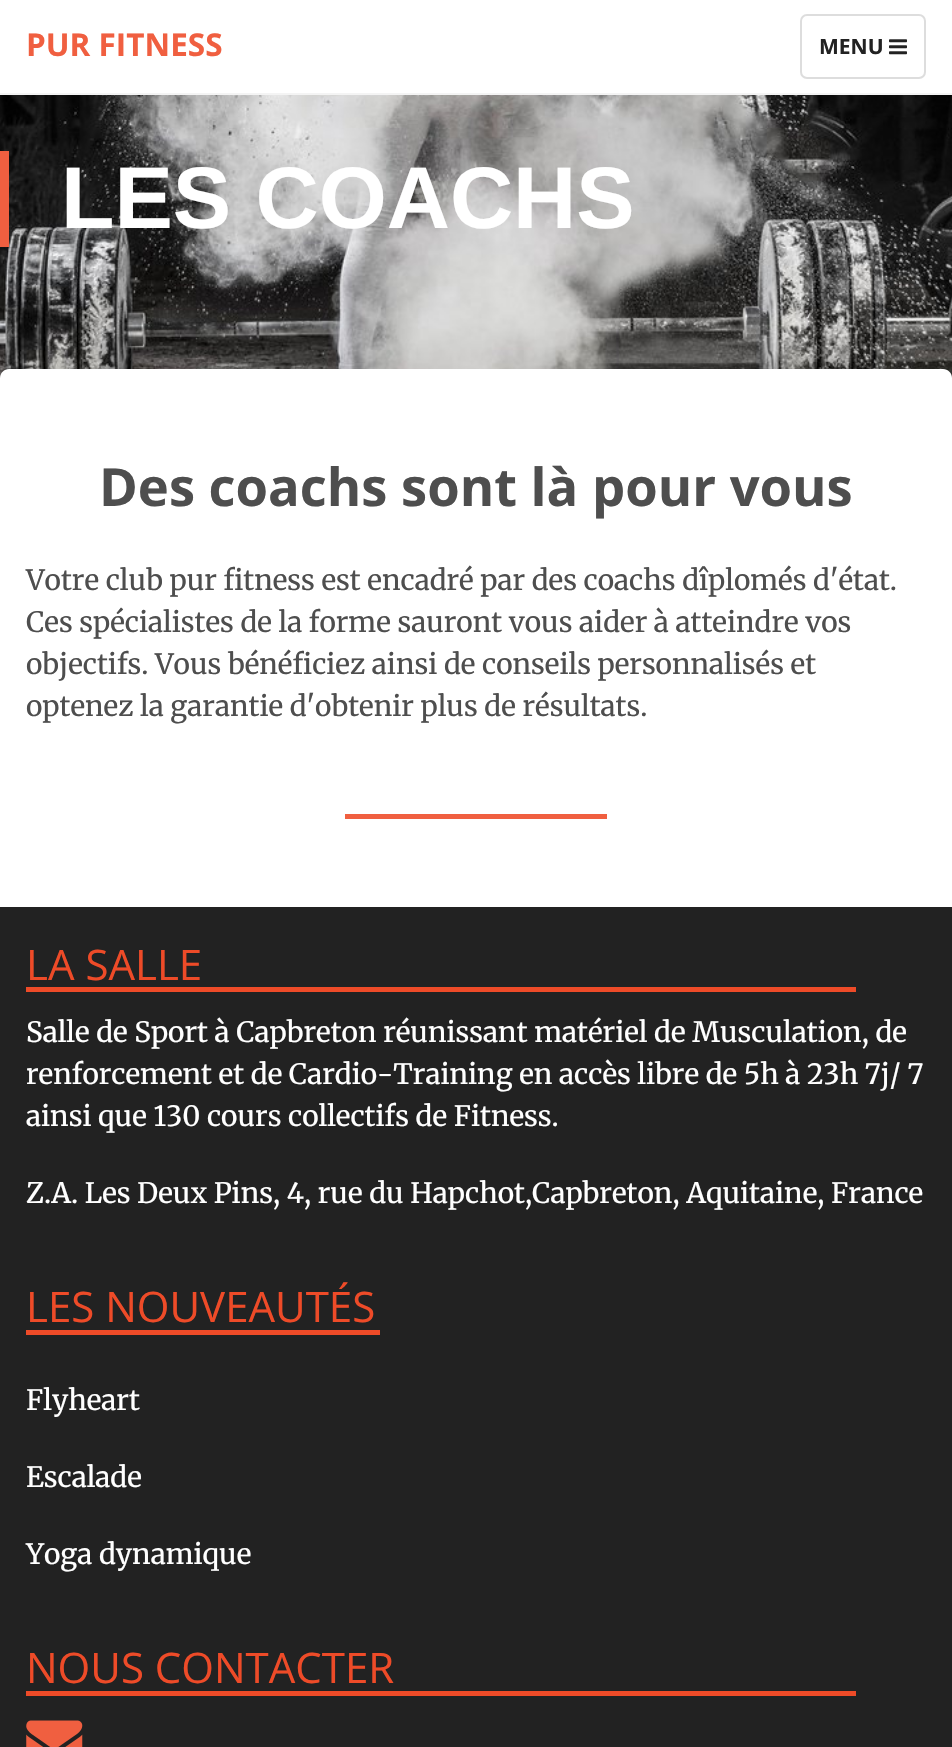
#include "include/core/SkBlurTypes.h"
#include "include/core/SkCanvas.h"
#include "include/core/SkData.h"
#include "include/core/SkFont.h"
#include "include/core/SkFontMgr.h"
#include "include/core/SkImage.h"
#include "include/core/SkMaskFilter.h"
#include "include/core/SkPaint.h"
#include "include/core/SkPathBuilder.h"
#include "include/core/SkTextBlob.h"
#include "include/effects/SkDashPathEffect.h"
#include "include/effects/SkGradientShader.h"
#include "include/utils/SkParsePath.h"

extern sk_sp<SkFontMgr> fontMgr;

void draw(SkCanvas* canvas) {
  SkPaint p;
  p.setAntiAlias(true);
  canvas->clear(SkColorSetRGB(34, 34, 34));
  p.setColor(SK_ColorWHITE);
  canvas->drawRect(SkRect::MakeLTRB(0, 0, 952, 93), p);
  p.setColor(SkColorSetRGB(244, 244, 244));
  canvas->drawRect(SkRect::MakeLTRB(0, 93, 952, 95), p);
  p.setStyle(SkPaint::kStroke_Style);
  p.setStrokeWidth(2);
  p.setColor(SkColorSetRGB(221, 221, 221));
  canvas->drawRoundRect(SkRect::MakeLTRB(801, 15, 925, 78), 6, 6, p);
  canvas->drawImageRect(SkImages::DeferredFromEncodedData(SkData::MakeFromFileName("images/1.png")), SkRect::MakeLTRB(889, 39, 907, 55), SkSamplingOptions());
  canvas->drawImageRect(SkImages::DeferredFromEncodedData(SkData::MakeFromFileName("images/2.png")), SkRect::MakeLTRB(0, 95, 952, 378), SkSamplingOptions());
  p.setStyle(SkPaint::kFill_Style);
  p.setColor(SkColorSetRGB(240, 95, 64));
  canvas->drawRect(SkRect::MakeLTRB(0, 151, 9, 247), p);
  p.setColor(SK_ColorWHITE);
  canvas->drawPath(SkPathBuilder().moveTo(9, 369).lineTo(943, 369).cubicTo(948, 369, 952, 373, 952, 378).lineTo(952, 907).lineTo(0, 907).lineTo(0, 378).cubicTo(0, 373, 4, 369, 9, 369).close().detach(), p);
  p.setColor(SkColorSetRGB(240, 95, 64));
  canvas->drawRect(SkRect::MakeLTRB(345, 814, 607, 819), p);
  p.setColor(SkColorSetRGB(238, 75, 40));
  canvas->drawRect(SkRect::MakeLTRB(26, 987, 856, 992), p);
  canvas->drawRect(SkRect::MakeLTRB(26, 1330, 380, 1335), p);
  canvas->drawRect(SkRect::MakeLTRB(26, 1691, 856, 1696), p);
  canvas->drawImageRect(SkImages::DeferredFromEncodedData(SkData::MakeFromFileName("images/3.png")), SkRect::MakeLTRB(26, 1720, 83, 1747), SkSamplingOptions());
  SkFont font1(fontMgr->matchFamilyStyle("Open Sans", SkFontStyle::Bold()), 31.5f);
  font1.setSubpixel(true);
  p.setColor(SkColorSetRGB(240, 95, 64));
  canvas->drawString("PUR FITNESS", 26, 56, font1, p);
  SkFont font2(fontMgr->matchFamilyStyle("Open Sans", SkFontStyle::Bold()), 21);
  font2.setSubpixel(true);
  p.setColor(SkColorSetRGB(34, 34, 34));
  canvas->drawString("MENU", 819, 54, font2, p);
  SkFont font3(fontMgr->matchFamilyStyle("Liberation Sans", SkFontStyle::Bold()), 87.5f);
  font3.setSubpixel(true);
  p.setColor(SK_ColorWHITE);
  canvas->drawString("LES COACHS", 61, 228, font3, p);
  SkFont font4(fontMgr->matchFamilyStyle("Open Sans", SkFontStyle::Bold()), 52.5f);
  font4.setSubpixel(true);
  p.setColor(SkColorSetRGB(78, 78, 78));
  canvas->drawString("Des coachs sont là pour vous", 99, 506, font4, p);
  SkFont font5(fontMgr->matchFamilyStyle("Merriweather", SkFontStyle::Normal()), 28);
  font5.setSubpixel(true);
  canvas->drawString("Votre club pur fitness est encadré par des coachs dîplomés d'état.", 26, 590, font5, p);
  canvas->drawString("Ces spécialistes de la forme sauront vous aider à atteindre vos", 26, 632, font5, p);
  canvas->drawString("objectifs. Vous bénéficiez ainsi de conseils personnalisés et", 26, 674, font5, p);
  canvas->drawString("optenez la garantie d'obtenir plus de résultats.", 26, 716, font5, p);
  SkFont font6(fontMgr->matchFamilyStyle("Open Sans", SkFontStyle::Normal()), 42);
  font6.setSubpixel(true);
  p.setColor(SkColorSetRGB(238, 75, 40));
  canvas->drawString("LA SALLE", 26, 980, font6, p);
  p.setColor(SK_ColorWHITE);
  canvas->drawString("Salle de Sport à Capbreton réunissant matériel de Musculation, de", 26, 1042, font5, p);
  canvas->drawString("renforcement et de Cardio-Training en accès libre de 5h à 23h 7j/ 7", 26, 1084, font5, p);
  canvas->drawString("ainsi que 130 cours collectifs de Fitness.", 26, 1126, font5, p);
  canvas->drawString("Z.A. Les Deux Pins, 4, rue du Hapchot,Capbreton, Aquitaine, France", 26, 1203, font5, p);
  p.setColor(SkColorSetRGB(238, 75, 40));
  canvas->drawString("LES NOUVEAUTÉS", 26, 1322, font6, p);
  p.setColor(SK_ColorWHITE);
  canvas->drawString("Flyheart", 26, 1410, font5, p);
  canvas->drawString("Escalade", 26, 1487, font5, p);
  canvas->drawString("Yoga dynamique", 26, 1564, font5, p);
  p.setColor(SkColorSetRGB(238, 75, 40));
  canvas->drawString("NOUS CONTACTER", 26, 1683, font6, p);
}
